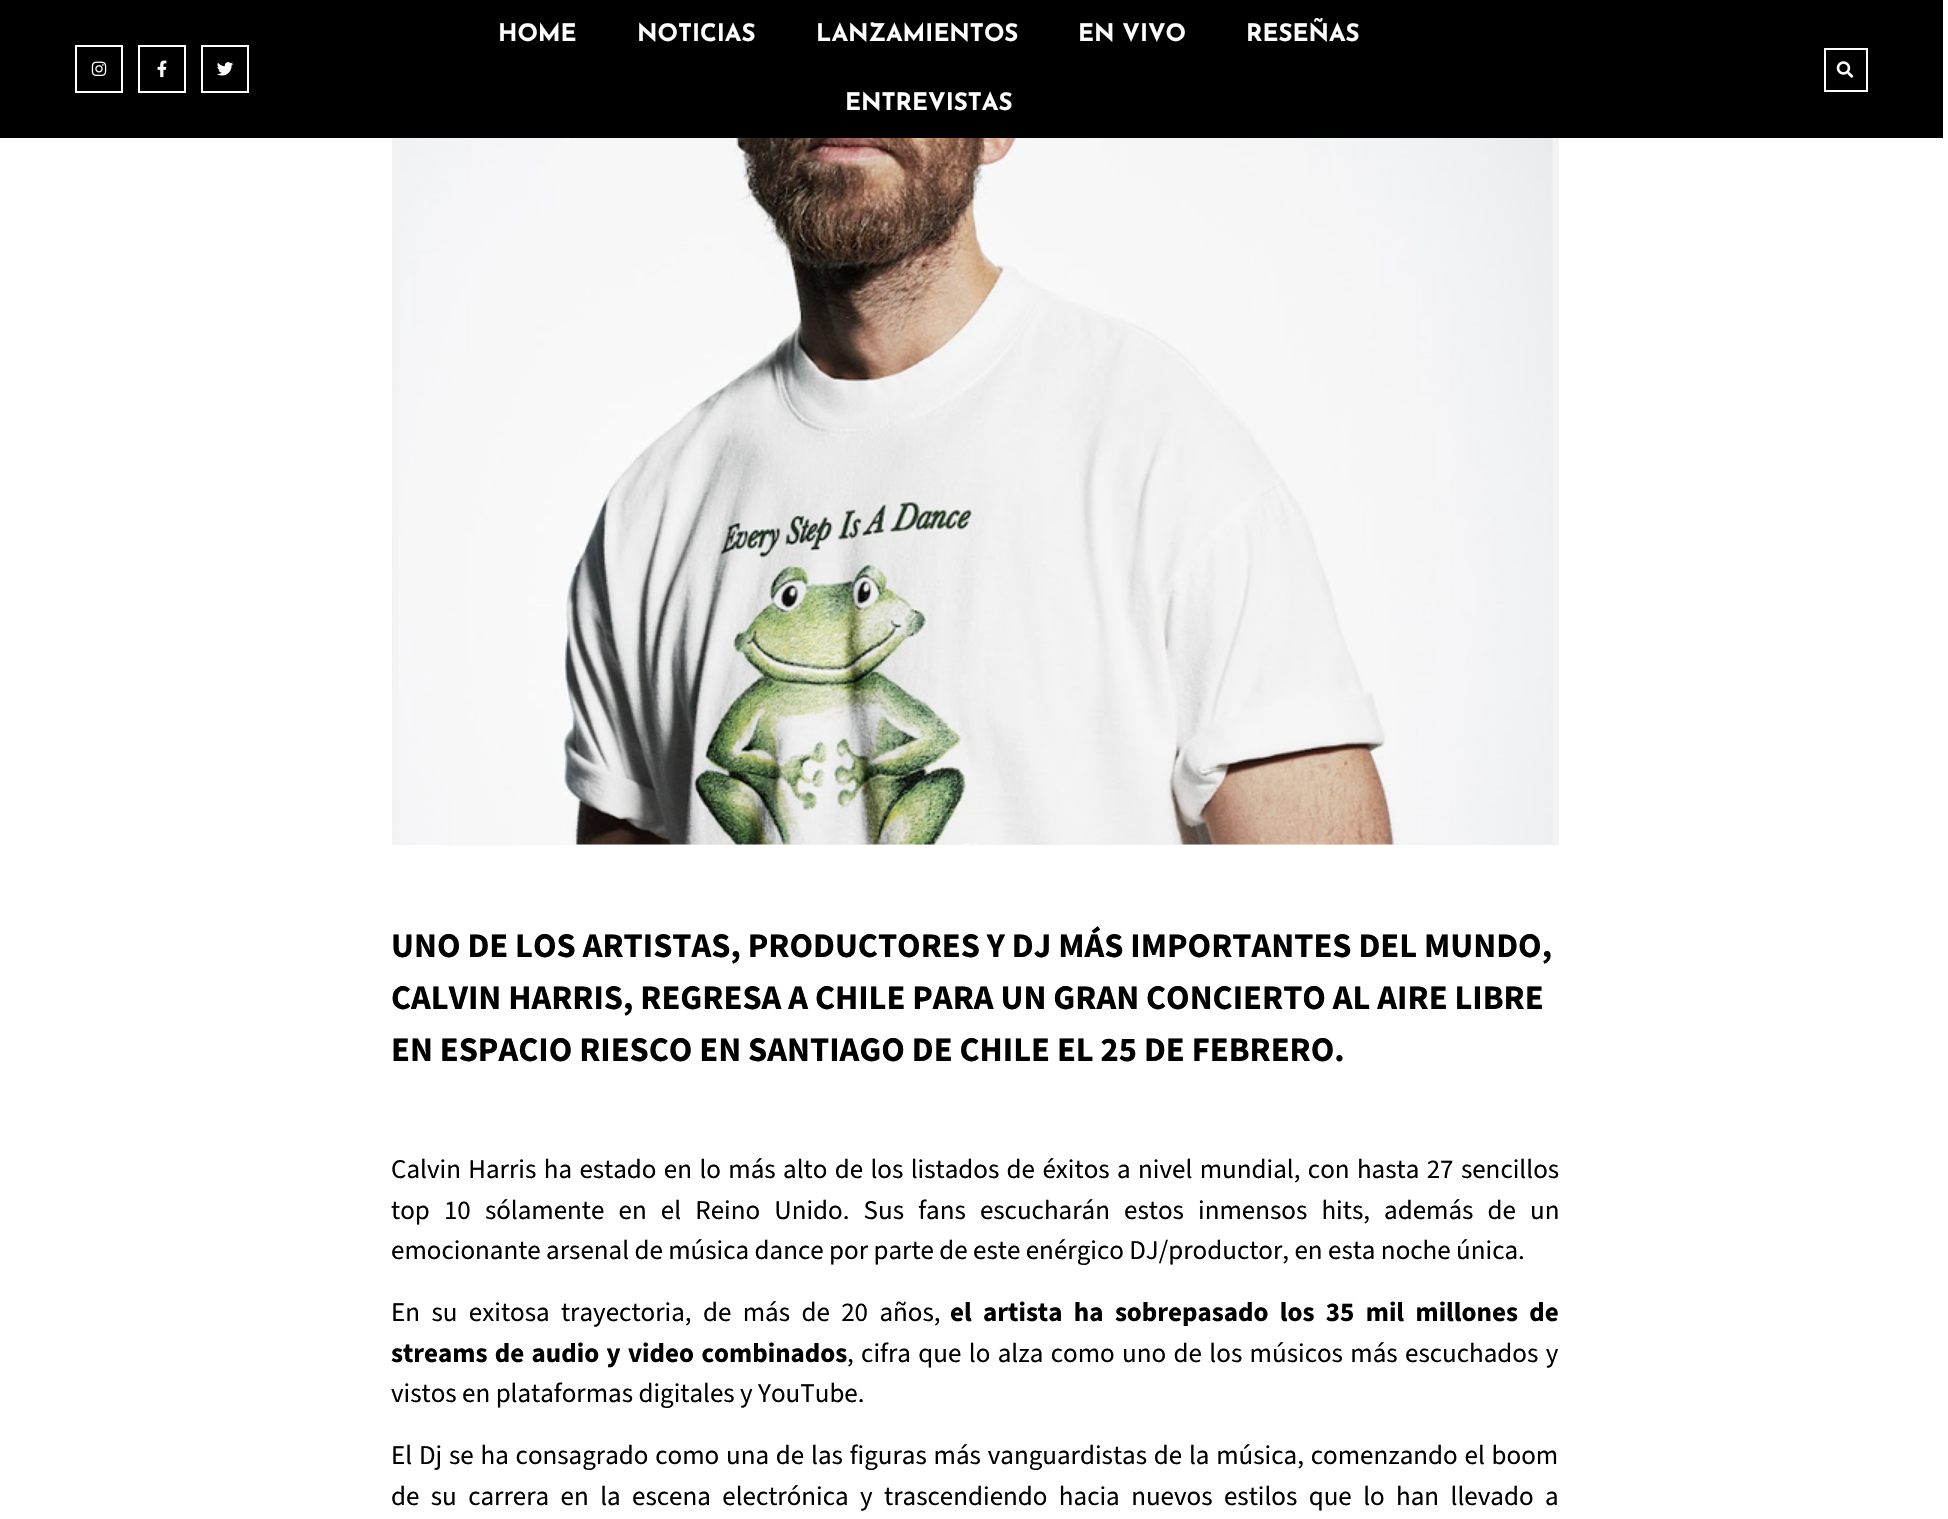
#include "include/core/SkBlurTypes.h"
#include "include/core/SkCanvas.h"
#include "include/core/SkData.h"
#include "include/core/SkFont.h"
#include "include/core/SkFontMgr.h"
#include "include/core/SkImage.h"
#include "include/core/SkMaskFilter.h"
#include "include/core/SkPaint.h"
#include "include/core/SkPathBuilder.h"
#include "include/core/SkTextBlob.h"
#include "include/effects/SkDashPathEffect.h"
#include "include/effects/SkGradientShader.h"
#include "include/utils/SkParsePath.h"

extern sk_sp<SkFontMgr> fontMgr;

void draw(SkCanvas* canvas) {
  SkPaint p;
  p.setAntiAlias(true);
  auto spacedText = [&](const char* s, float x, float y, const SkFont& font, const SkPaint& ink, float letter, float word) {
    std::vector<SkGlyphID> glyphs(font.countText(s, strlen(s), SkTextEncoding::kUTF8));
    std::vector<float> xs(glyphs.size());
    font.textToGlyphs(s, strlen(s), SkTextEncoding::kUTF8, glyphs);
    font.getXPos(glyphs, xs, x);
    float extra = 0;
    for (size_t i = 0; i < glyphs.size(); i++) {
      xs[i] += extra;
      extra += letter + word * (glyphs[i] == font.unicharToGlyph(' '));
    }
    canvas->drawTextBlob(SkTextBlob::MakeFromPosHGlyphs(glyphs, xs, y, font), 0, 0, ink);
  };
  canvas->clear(SK_ColorWHITE);
  p.setColor(SK_ColorBLACK);
  canvas->drawRect(SkRect::MakeLTRB(0, 0, 1943, 138), p);
  p.setStyle(SkPaint::kStroke_Style);
  p.setStrokeWidth(2);
  p.setColor(SK_ColorWHITE);
  canvas->drawRect(SkRect::MakeLTRB(76, 46, 122, 92), p);
  canvas->drawImageRect(SkImages::DeferredFromEncodedData(SkData::MakeFromFileName("images/1.png")), SkRect::MakeLTRB(91, 61, 107, 76), SkSamplingOptions());
  canvas->drawRect(SkRect::MakeLTRB(139, 46, 185, 92), p);
  canvas->drawImageRect(SkImages::DeferredFromEncodedData(SkData::MakeFromFileName("images/2.png")), SkRect::MakeLTRB(157, 60, 167, 78), SkSamplingOptions());
  canvas->drawRect(SkRect::MakeLTRB(202, 46, 248, 92), p);
  canvas->drawImageRect(SkImages::DeferredFromEncodedData(SkData::MakeFromFileName("images/3.png")), SkRect::MakeLTRB(217, 62, 234, 76), SkSamplingOptions());
  canvas->drawRect(SkRect::MakeLTRB(1825, 49, 1867, 91), p);
  canvas->drawImageRect(SkImages::DeferredFromEncodedData(SkData::MakeFromFileName("images/4.png")), SkRect::MakeLTRB(1836, 61, 1854, 78), SkSamplingOptions());
  p.setStyle(SkPaint::kFill_Style);
  p.setColor(SkColorSetRGB(243, 243, 243));
  canvas->drawRect(SkRect::MakeLTRB(392, 138, 1559, 845), p);
  canvas->drawImageRect(SkImages::DeferredFromEncodedData(SkData::MakeFromFileName("images/5.png")), SkRect::MakeLTRB(398, 138, 1553, 845), SkSamplingOptions());
  SkFont font1(fontMgr->matchFamilyStyle("Josefin Sans", SkFontStyle::Bold()), 24);
  font1.setSubpixel(true);
  p.setColor(SK_ColorWHITE);
  canvas->drawString("HOME", 498, 41, font1, p);
  canvas->drawString("NOTICIAS", 637, 41, font1, p);
  canvas->drawString("LANZAMIENTOS", 816, 41, font1, p);
  canvas->drawString("EN VIVO", 1078, 41, font1, p);
  canvas->drawString("RESEÑAS", 1246, 41, font1, p);
  canvas->drawString("ENTREVISTAS", 845, 110, font1, p);
  SkFont font2(fontMgr->matchFamilyStyle("Source Sans Pro", SkFontStyle::Bold()), 34.5f);
  font2.setSubpixel(true);
  p.setColor(SK_ColorBLACK);
  canvas->drawString("UNO DE LOS ARTISTAS, PRODUCTORES Y DJ MÁS IMPORTANTES DEL MUNDO,", 391, 957, font2, p);
  canvas->drawString("CALVIN HARRIS, REGRESA A CHILE PARA UN GRAN CONCIERTO AL AIRE LIBRE", 391, 1009, font2, p);
  canvas->drawString("EN ESPACIO RIESCO EN SANTIAGO DE CHILE EL 25 DE FEBRERO.", 391, 1061, font2, p);
  SkFont font3(fontMgr->matchFamilyStyle("Source Sans 3", SkFontStyle::Normal()), 27);
  font3.setSubpixel(true);
  spacedText("Calvin Harris ha estado en lo más alto de los listados de éxitos a nivel mundial, con hasta 27 sencillos", 391, 1178, font3, p, 0, 2);
  spacedText("top 10 sólamente en el Reino Unido. Sus fans escucharán estos inmensos hits, además de un", 391, 1219, font3, p, 0, 8.75f);
  canvas->drawString("emocionante arsenal de música dance por parte de este enérgico DJ/productor, en esta noche única.", 391, 1259, font3, p);
  spacedText("En su exitosa trayectoria, de más de 20 años,", 391, 1321, font3, p, 0, 6);
  SkFont font4(fontMgr->matchFamilyStyle("Source Sans 3", SkFontStyle::Bold()), 27);
  font4.setSubpixel(true);
  spacedText("el artista ha sobrepasado los 35 mil millones de", 950, 1321, font4, p, 0, 6);
  spacedText("streams de audio y video combinados", 391, 1362, font4, p, 0, 2);
  spacedText(", cifra que lo alza como uno de los músicos más escuchados y", 847, 1362, font3, p, 0, 2);
  canvas->drawString("vistos en plataformas digitales y YouTube.", 391, 1402, font3, p);
  spacedText("El Dj se ha consagrado como una de las figuras más vanguardistas de la música, comenzando el boom", 391, 1464, font3, p, 0, 1.4f);
  spacedText("de su carrera en la escena electrónica y trascendiendo hacia nuevos estilos que lo han llevado a", 391, 1505, font3, p, 0, 6);
}
